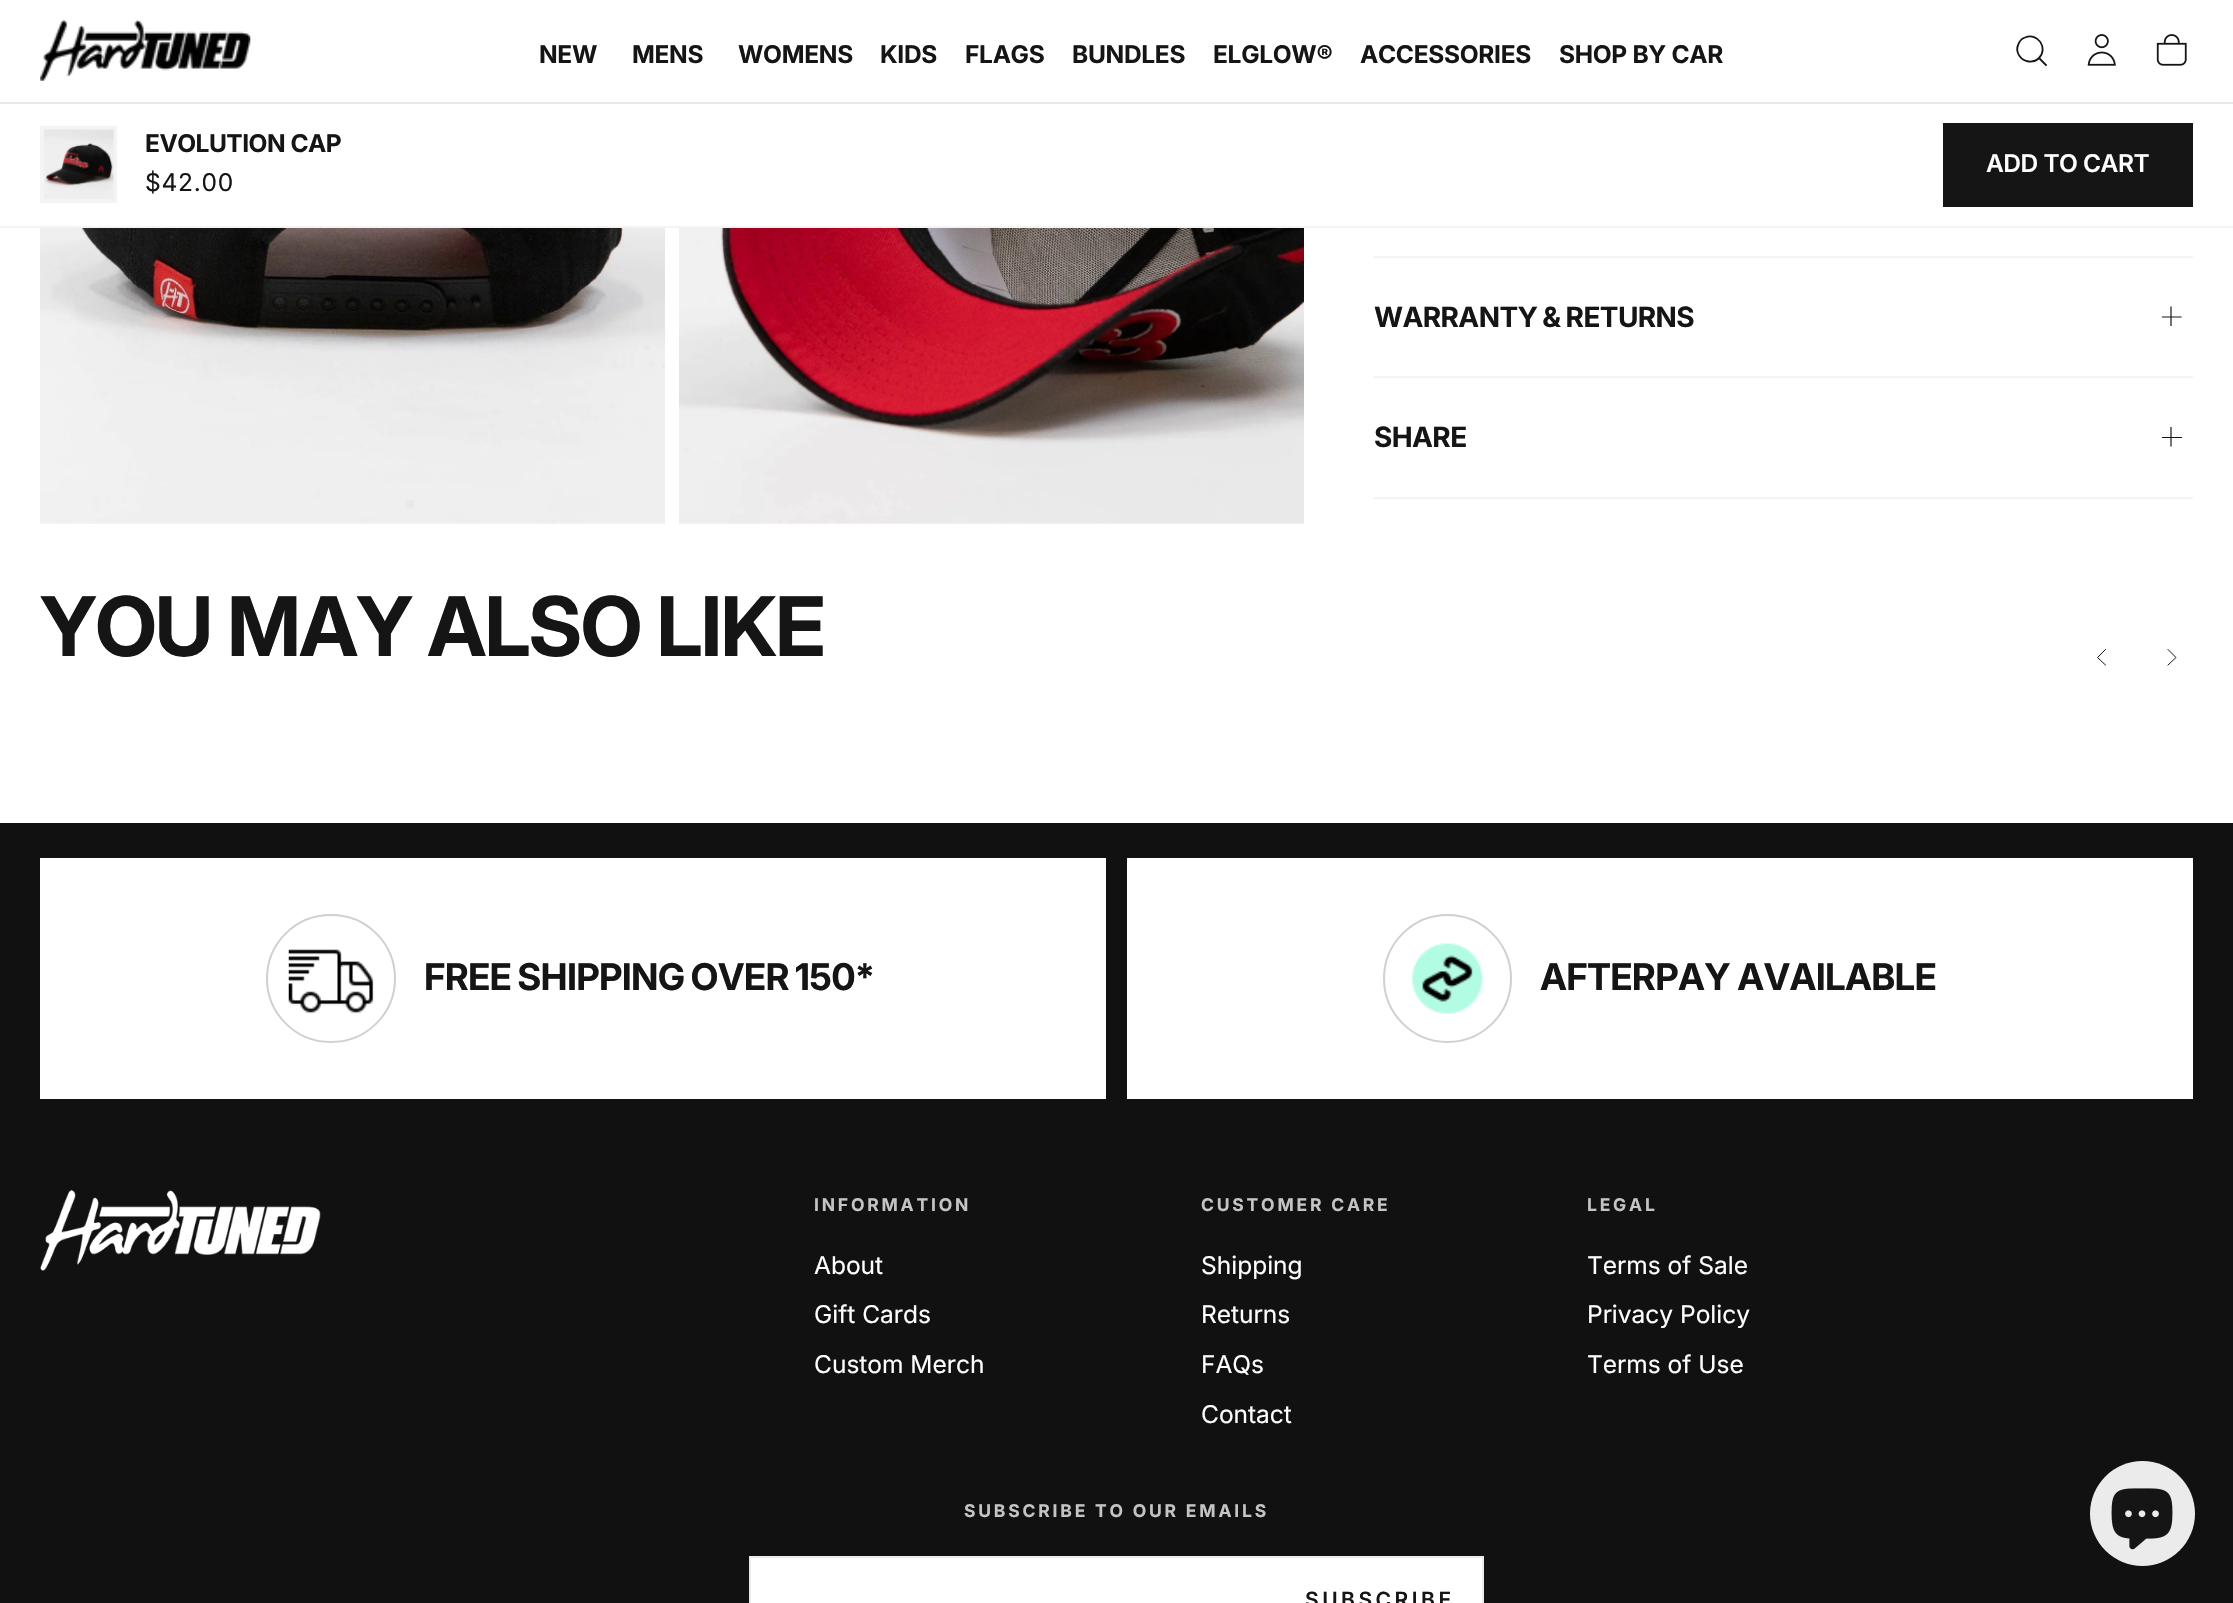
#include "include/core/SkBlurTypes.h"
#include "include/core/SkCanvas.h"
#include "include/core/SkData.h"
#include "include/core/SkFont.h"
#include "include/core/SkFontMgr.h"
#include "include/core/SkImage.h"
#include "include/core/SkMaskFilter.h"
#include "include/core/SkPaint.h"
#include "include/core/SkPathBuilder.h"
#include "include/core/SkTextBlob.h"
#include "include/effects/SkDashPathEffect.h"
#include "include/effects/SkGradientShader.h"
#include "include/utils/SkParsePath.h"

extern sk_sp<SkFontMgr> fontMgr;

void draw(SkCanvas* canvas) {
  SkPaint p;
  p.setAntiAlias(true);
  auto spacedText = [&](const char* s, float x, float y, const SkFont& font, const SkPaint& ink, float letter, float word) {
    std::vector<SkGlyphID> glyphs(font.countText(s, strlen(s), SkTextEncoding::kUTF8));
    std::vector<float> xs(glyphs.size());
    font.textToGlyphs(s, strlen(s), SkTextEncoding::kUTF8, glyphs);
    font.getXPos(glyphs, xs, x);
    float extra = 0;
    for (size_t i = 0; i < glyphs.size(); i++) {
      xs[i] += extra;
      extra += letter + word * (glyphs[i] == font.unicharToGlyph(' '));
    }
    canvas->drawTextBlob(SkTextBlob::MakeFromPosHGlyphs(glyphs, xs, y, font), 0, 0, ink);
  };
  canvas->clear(SK_ColorWHITE);
  p.setColor(SkColorSetRGB(232, 232, 232));
  canvas->drawRect(SkRect::MakeLTRB(0, 102, 2233, 104), p);
  canvas->drawImageRect(SkImages::DeferredFromEncodedData(SkData::MakeFromFileName("images/1.png")), SkRect::MakeLTRB(40, 19, 251, 81), SkSamplingOptions());
  p.setStyle(SkPaint::kStroke_Style);
  p.setStrokeWidth(1.8f);
  p.setStrokeCap(SkPaint::kSquare_Cap);
  p.setColor(SkColorSetRGB(21, 21, 21));
  canvas->drawPath(SkPathBuilder().moveTo(2046, 65).lineTo(2039, 58).moveTo(2039, 58).cubicTo(2048.5f, 48.5f, 2038, 32, 2025, 37.5f).cubicTo(2022, 38.5f, 2019.5f, 41, 2018.5f, 44).cubicTo(2016.5f, 48, 2017, 52.5f, 2019.5f, 56).cubicTo(2024, 62.5f, 2033.5f, 63.5f, 2039, 58).close().detach(), p);
  canvas->drawImageRect(SkImages::DeferredFromEncodedData(SkData::MakeFromFileName("images/2.png")), SkRect::MakeLTRB(2087, 34, 2116, 66), SkSamplingOptions());
  canvas->drawImageRect(SkImages::DeferredFromEncodedData(SkData::MakeFromFileName("images/3.png")), SkRect::MakeLTRB(2156, 34, 2187, 66), SkSamplingOptions());
  p.setStyle(SkPaint::kFill_Style);
  p.setColor(SkColorSetRGB(244, 244, 244));
  canvas->drawRect(SkRect::MakeLTRB(0, 226, 2233, 228), p);
  p.setStyle(SkPaint::kStroke_Style);
  p.setStrokeWidth(4);
  p.setStrokeCap(SkPaint::kButt_Cap);
  canvas->drawRect(SkRect::MakeLTRB(42, 128, 115, 201), p);
  canvas->drawImageRect(SkImages::DeferredFromEncodedData(SkData::MakeFromFileName("images/4.png")), SkRect::MakeLTRB(44, 129, 114, 199), SkSamplingOptions());
  p.setStyle(SkPaint::kFill_Style);
  p.setColor(SkColorSetRGB(21, 21, 21));
  canvas->drawRect(SkRect::MakeLTRB(1943, 123, 2193, 207), p);
  canvas->drawImageRect(SkImages::DeferredFromEncodedData(SkData::MakeFromFileName("images/5.png")), SkRect::MakeLTRB(40, 228, 665, 524), SkSamplingOptions());
  canvas->drawImageRect(SkImages::DeferredFromEncodedData(SkData::MakeFromFileName("images/6.png")), SkRect::MakeLTRB(679, 228, 1304, 524), SkSamplingOptions());
  p.setColor(SkColorSetRGB(244, 244, 244));
  canvas->drawRect(SkRect::MakeLTRB(1374, 256, 2193, 258), p);
  canvas->drawRect(SkRect::MakeLTRB(1374, 376, 2193, 378), p);
  p.setStyle(SkPaint::kStroke_Style);
  p.setStrokeWidth(1.2f);
  p.setStrokeCap(SkPaint::kSquare_Cap);
  p.setColor(SkColorSetRGB(21, 21, 21));
  canvas->drawPath(SkPathBuilder().moveTo(2162.5f, 317).lineTo(2181, 317).moveTo(2171, 307).lineTo(2171, 325.5f).detach(), p);
  p.setStyle(SkPaint::kFill_Style);
  p.setColor(SkColorSetRGB(244, 244, 244));
  canvas->drawRect(SkRect::MakeLTRB(1374, 497, 2193, 499), p);
  p.setColor(SkColorSetRGB(21, 21, 21));
  canvas->drawRect(SkRect::MakeLTRB(2162, 437, 2182, 438), p);
  p.setStyle(SkPaint::kStroke_Style);
  canvas->drawPath(SkPathBuilder().moveTo(2171, 427.5f).lineTo(2171, 446).detach(), p);
  p.setStrokeWidth(1);
  canvas->drawPath(SkPathBuilder().moveTo(2105.5f, 649.5f).lineTo(2097.5f, 657.5f).lineTo(2105.5f, 665).detach(), p);
  canvas->drawPath(SkPathBuilder().moveTo(2168, 649.5f).lineTo(2176, 657.5f).lineTo(2168, 665).detach(), p);
  p.setStyle(SkPaint::kFill_Style);
  p.setColor(SkColorSetRGB(17, 17, 17));
  canvas->drawRect(SkRect::MakeLTRB(0, 823, 2233, 1603), p);
  p.setColor(SK_ColorWHITE);
  canvas->drawRect(SkRect::MakeLTRB(40, 858, 1106, 1099), p);
  p.setStyle(SkPaint::kStroke_Style);
  p.setStrokeWidth(2);
  p.setStrokeCap(SkPaint::kButt_Cap);
  p.setColor(SkColorSetRGB(208, 208, 208));
  canvas->drawRoundRect(SkRect::MakeLTRB(267, 915, 395, 1042), 63.5f, 63.5f, p);
  canvas->drawImageRect(SkImages::DeferredFromEncodedData(SkData::MakeFromFileName("images/7.png")), SkRect::MakeLTRB(288, 949, 374, 1014), SkSamplingOptions());
  p.setStyle(SkPaint::kFill_Style);
  p.setColor(SK_ColorWHITE);
  canvas->drawRect(SkRect::MakeLTRB(1127, 858, 2193, 1099), p);
  p.setStyle(SkPaint::kStroke_Style);
  p.setColor(SkColorSetRGB(208, 208, 208));
  canvas->drawCircle(1447.5f, 978.5f, 63.5f, p);
  canvas->drawImageRect(SkImages::DeferredFromEncodedData(SkData::MakeFromFileName("images/8.png")), SkRect::MakeLTRB(1411, 943, 1483, 1014), SkSamplingOptions());
  canvas->drawImageRect(SkImages::DeferredFromEncodedData(SkData::MakeFromFileName("images/9.png")), SkRect::MakeLTRB(40, 1189, 321, 1271), SkSamplingOptions());
  p.setColor(SkColorSetRGB(235, 235, 235));
  canvas->drawRect(SkRect::MakeLTRB(750, 1557, 1483, 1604), p);
  p.setStyle(SkPaint::kFill_Style);
  p.setColor(SK_ColorWHITE);
  canvas->drawRect(SkRect::MakeLTRB(751, 1558, 1482, 1603), p);
  p.setColor(SkColorSetRGB(235, 235, 235));
  canvas->drawCircle(2142.5f, 1513.5f, 52.5f, p);
  canvas->drawImageRect(SkImages::DeferredFromEncodedData(SkData::MakeFromFileName("images/10.png")), SkRect::MakeLTRB(2111, 1488, 2173, 1550), SkSamplingOptions());
  SkFont font1(fontMgr->matchFamilyStyle("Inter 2", SkFontStyle::Bold()), 24.5f);
  font1.setSubpixel(true);
  p.setColor(SkColorSetRGB(21, 21, 21));
  spacedText("NEW", 539, 63, font1, p, -0.3f, 0);
  spacedText("MENS", 632, 63, font1, p, -0.3f, 0);
  spacedText("WOMENS", 738, 63, font1, p, -0.3f, 0);
  spacedText("KIDS", 880, 63, font1, p, -0.3f, 0);
  spacedText("FLAGS", 965, 63, font1, p, -0.3f, 0);
  spacedText("BUNDLES", 1072, 63, font1, p, -0.3f, 0);
  spacedText("ELGLOW®", 1213, 63, font1, p, -0.3f, 0);
  spacedText("ACCESSORIES", 1360, 63, font1, p, -0.3f, 0);
  spacedText("SHOP BY CAR", 1559, 63, font1, p, -0.3f, 0);
  spacedText("EVOLUTION CAP", 145, 152, font1, p, -0.5f, 0);
  SkFont font2(fontMgr->matchFamilyStyle("Inter", SkFontStyle::Normal()), 24.5f);
  font2.setSubpixel(true);
  spacedText("$42.00", 145, 191, font2, p, 0.75f, 0);
  SkFont font3(fontMgr->matchFamilyStyle("Inter", SkFontStyle(600, SkFontStyle::kNormal_Width, SkFontStyle::kUpright_Slant)), 24.5f);
  font3.setSubpixel(true);
  p.setColor(SK_ColorWHITE);
  spacedText("ADD TO CART", 1986, 172, font3, p, -0.5f, 0);
  SkFont font4(fontMgr->matchFamilyStyle("Inter 2", SkFontStyle::Bold()), 28);
  font4.setSubpixel(true);
  p.setColor(SkColorSetRGB(21, 21, 21));
  spacedText("WARRANTY & RETURNS", 1374, 327, font4, p, -0.6f, -1);
  spacedText("SHARE", 1374, 447, font4, p, -0.6f, 0);
  SkFont font5(fontMgr->matchFamilyStyle("Inter", SkFontStyle::Bold()), 82.25f);
  font5.setSubpixel(true);
  spacedText("YOU MAY ALSO LIKE", 40, 656, font5, p, -1.6f, 0);
  SkFont font6(fontMgr->matchFamilyStyle("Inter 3", SkFontStyle::Bold()), 36.75f);
  font6.setSubpixel(true);
  spacedText("FREE SHIPPING OVER 150*", 424, 990, font6, p, -0.75f, -1.5f);
  spacedText("AFTERPAY AVAILABLE", 1540, 990, font6, p, -0.75f, 0);
  SkFont font7(fontMgr->matchFamilyStyle("Inter 2", SkFontStyle::Bold()), 17.5f);
  font7.setSubpixel(true);
  p.setColor(SkColorSetRGB(196, 196, 196));
  spacedText("INFORMATION", 814, 1211, font7, p, 2.8f, 0);
  p.setColor(SK_ColorWHITE);
  canvas->drawString("About", 814, 1274, font2, p);
  canvas->drawString("Gift Cards", 814, 1323, font2, p);
  canvas->drawString("Custom Merch", 814, 1373, font2, p);
  p.setColor(SkColorSetRGB(196, 196, 196));
  spacedText("CUSTOMER CARE", 1201, 1211, font7, p, 2.8f, 0);
  p.setColor(SK_ColorWHITE);
  canvas->drawString("Shipping", 1201, 1274, font2, p);
  canvas->drawString("Returns", 1201, 1323, font2, p);
  canvas->drawString("FAQs", 1201, 1373, font2, p);
  canvas->drawString("Contact", 1201, 1423, font2, p);
  p.setColor(SkColorSetRGB(196, 196, 196));
  spacedText("LEGAL", 1587, 1211, font7, p, 2.8f, 0);
  p.setColor(SK_ColorWHITE);
  canvas->drawString("Terms of Sale", 1587, 1274, font2, p);
  canvas->drawString("Privacy Policy", 1587, 1323, font2, p);
  canvas->drawString("Terms of Use", 1587, 1373, font2, p);
  p.setColor(SkColorSetRGB(196, 196, 196));
  spacedText("SUBSCRIBE TO OUR EMAILS", 964, 1517, font7, p, 2.8f, 0);
  SkFont font8(fontMgr->matchFamilyStyle("Inter", SkFontStyle(600, SkFontStyle::kNormal_Width, SkFontStyle::kUpright_Slant)), 21);
  font8.setSubpixel(true);
  p.setColor(SkColorSetRGB(21, 21, 21));
  spacedText("SUBSCRIBE", 1305, 1607, font8, p, 3.5f, 0);
}
